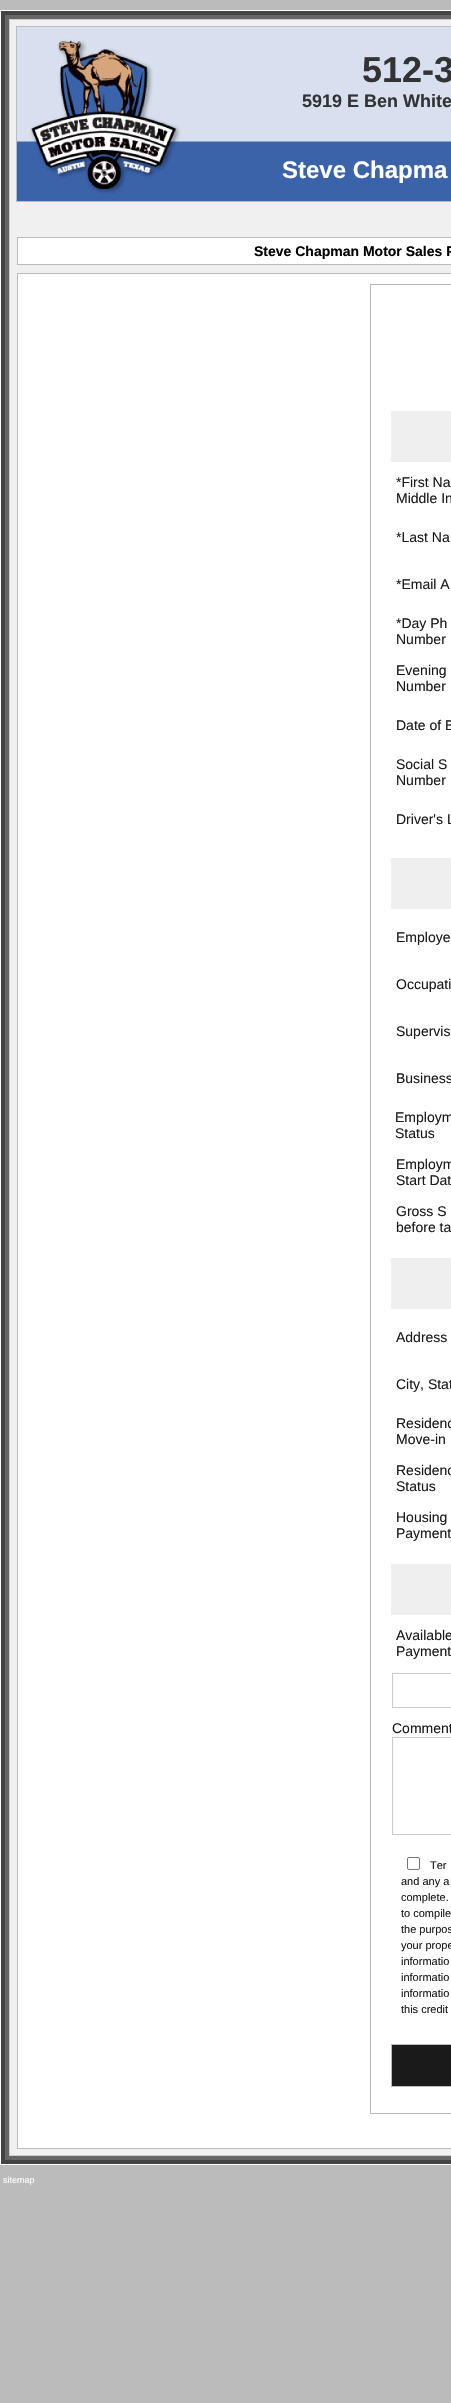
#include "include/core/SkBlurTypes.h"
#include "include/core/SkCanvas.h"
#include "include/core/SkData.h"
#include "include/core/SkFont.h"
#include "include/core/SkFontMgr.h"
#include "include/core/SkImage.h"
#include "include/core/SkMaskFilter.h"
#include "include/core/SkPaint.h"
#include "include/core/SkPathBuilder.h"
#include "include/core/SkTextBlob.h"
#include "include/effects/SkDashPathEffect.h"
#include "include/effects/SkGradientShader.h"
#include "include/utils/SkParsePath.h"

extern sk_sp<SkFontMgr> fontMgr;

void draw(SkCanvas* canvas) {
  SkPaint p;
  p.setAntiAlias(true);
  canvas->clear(SkColorSetRGB(187, 187, 187));
  p.setStyle(SkPaint::kStroke_Style);
  p.setStrokeWidth(1);
  p.setColor(SK_ColorWHITE);
  canvas->drawRect(SkRect::MakeLTRB(0.5f, 10.5f, 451.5f, 2164.5f), p);
  p.setStyle(SkPaint::kFill_Style);
  p.setColor(SkColorSetRGB(102, 102, 102));
  canvas->drawRect(SkRect::MakeLTRB(3, 13, 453, 2162), p);
  p.setStyle(SkPaint::kStroke_Style);
  p.setStrokeWidth(4);
  p.setColor(SkColorSetRGB(68, 68, 68));
  canvas->drawRect(SkRect::MakeLTRB(3, 13, 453, 2162), p);
  p.setStyle(SkPaint::kFill_Style);
  p.setColor(SkColorSetRGB(240, 240, 240));
  canvas->drawRect(SkRect::MakeLTRB(9.5f, 19.5f, 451.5f, 2155.5f), p);
  p.setStyle(SkPaint::kStroke_Style);
  p.setStrokeWidth(1);
  p.setColor(SkColorSetRGB(204, 204, 204));
  canvas->drawRect(SkRect::MakeLTRB(9.5f, 19.5f, 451.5f, 2155.5f), p);
  p.setColor(SkColorSetRGB(187, 187, 187));
  canvas->drawRect(SkRect::MakeLTRB(16.5f, 26.5f, 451.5f, 201.5f), p);
  canvas->drawImageRect(SkImages::DeferredFromEncodedData(SkData::MakeFromFileName("images/1.png")), SkRect::MakeLTRB(17, 27, 451, 201), SkSamplingOptions());
  p.setStyle(SkPaint::kFill_Style);
  p.setColor(SK_ColorWHITE);
  canvas->drawRect(SkRect::MakeLTRB(18, 238, 451, 264), p);
  p.setColor(SkColorSetRGB(187, 187, 187));
  canvas->drawRect(SkRect::MakeLTRB(17, 237, 451, 238), p);
  canvas->drawRect(SkRect::MakeLTRB(17, 264, 451, 265), p);
  canvas->drawRect(SkRect::MakeLTRB(17, 237, 18, 265), p);
  p.setColor(SK_ColorWHITE);
  canvas->drawRect(SkRect::MakeLTRB(18, 274, 451, 2148), p);
  p.setColor(SkColorSetRGB(187, 187, 187));
  canvas->drawRect(SkRect::MakeLTRB(17, 273, 451, 274), p);
  canvas->drawRect(SkRect::MakeLTRB(17, 2148, 451, 2149), p);
  canvas->drawRect(SkRect::MakeLTRB(17, 273, 18, 2149), p);
  p.setStyle(SkPaint::kStroke_Style);
  canvas->drawRect(SkRect::MakeLTRB(370.5f, 284.5f, 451.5f, 2113.5f), p);
  p.setStyle(SkPaint::kFill_Style);
  p.setColor(SkColorSetRGB(239, 239, 239));
  canvas->drawRect(SkRect::MakeLTRB(391, 411, 451, 462), p);
  canvas->drawRect(SkRect::MakeLTRB(391, 858, 451, 909), p);
  canvas->drawRect(SkRect::MakeLTRB(391, 1258, 451, 1309), p);
  canvas->drawRect(SkRect::MakeLTRB(391, 1564, 451, 1615), p);
  p.setStyle(SkPaint::kStroke_Style);
  p.setColor(SkColorSetRGB(204, 204, 204));
  canvas->drawRect(SkRect::MakeLTRB(392.5f, 1673.5f, 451.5f, 1707.5f), p);
  canvas->drawRect(SkRect::MakeLTRB(392.5f, 1737.5f, 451.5f, 1834.5f), p);
  p.setColor(SkColorSetRGB(118, 118, 118));
  canvas->drawRoundRect(SkRect::MakeLTRB(407.5f, 1857.5f, 419.5f, 1869.5f), 1.5f, 1.5f, p);
  p.setStyle(SkPaint::kFill_Style);
  p.setColor(SkColorSetRGB(26, 26, 26));
  canvas->drawRect(SkRect::MakeLTRB(391.5f, 2044.5f, 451.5f, 2086.5f), p);
  p.setStyle(SkPaint::kStroke_Style);
  p.setColor(SkColorSetRGB(187, 187, 187));
  canvas->drawRect(SkRect::MakeLTRB(391.5f, 2044.5f, 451.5f, 2086.5f), p);
  SkFont font1(fontMgr->matchFamilyStyle("Liberation Sans", SkFontStyle::Bold()), 36);
  font1.setSubpixel(true);
  p.setStyle(SkPaint::kFill_Style);
  p.setColor(SkColorSetRGB(51, 51, 51));
  canvas->drawString("512-3", 362, 82, font1, p);
  SkFont font2(fontMgr->matchFamilyStyle("Liberation Sans", SkFontStyle::Bold()), 18);
  font2.setSubpixel(true);
  canvas->drawString("5919 E Ben White", 302, 107, font2, p);
  SkFont font3(fontMgr->matchFamilyStyle("Liberation Sans", SkFontStyle::Bold()), 24);
  font3.setSubpixel(true);
  p.setColor(SK_ColorWHITE);
  canvas->drawString("Steve Chapma", 282, 178, font3, p);
  SkFont font4(fontMgr->matchFamilyStyle("Liberation Sans", SkFontStyle::Bold()), 14);
  font4.setSubpixel(true);
  p.setColor(SK_ColorBLACK);
  canvas->drawString("Steve Chapman Motor Sales F", 254, 256, font4, p);
  SkFont font5(fontMgr->matchFamilyStyle("Liberation Sans", SkFontStyle::Normal()), 14);
  font5.setSubpixel(true);
  p.setColor(SkColorSetRGB(26, 26, 26));
  canvas->drawString("*First Na", 396, 487, font5, p);
  canvas->drawString("Middle In", 396, 503, font5, p);
  canvas->drawString("*Last Na", 396, 542, font5, p);
  canvas->drawString("*Email A", 396, 589, font5, p);
  canvas->drawString("*Day Ph", 396, 628, font5, p);
  canvas->drawString("Number", 396, 644, font5, p);
  canvas->drawString("Evening", 396, 675, font5, p);
  canvas->drawString("Number", 396, 691, font5, p);
  canvas->drawString("Date of B", 396, 730, font5, p);
  canvas->drawString("Social S", 396, 769, font5, p);
  canvas->drawString("Number", 396, 785, font5, p);
  canvas->drawString("Driver's L", 396, 824, font5, p);
  canvas->drawString("Employe", 396, 942, font5, p);
  canvas->drawString("Occupati", 396, 989, font5, p);
  canvas->drawString("Supervis", 396, 1036, font5, p);
  canvas->drawString("Business", 396, 1083, font5, p);
  canvas->drawString("Employm", 395, 1122, font5, p);
  canvas->drawString("Status", 395, 1138, font5, p);
  canvas->drawString("Employm", 396, 1169, font5, p);
  canvas->drawString("Start Dat", 396, 1185, font5, p);
  canvas->drawString("Gross S", 396, 1216, font5, p);
  canvas->drawString("before ta", 396, 1232, font5, p);
  canvas->drawString("Address", 396, 1342, font5, p);
  canvas->drawString("City, Stat", 396, 1389, font5, p);
  canvas->drawString("Residenc", 396, 1428, font5, p);
  canvas->drawString("Move-in", 396, 1444, font5, p);
  canvas->drawString("Residenc", 396, 1475, font5, p);
  canvas->drawString("Status", 396, 1491, font5, p);
  canvas->drawString("Housing", 396, 1522, font5, p);
  canvas->drawString("Payment", 396, 1538, font5, p);
  canvas->drawString("Available", 396, 1640, font5, p);
  canvas->drawString("Payment", 396, 1656, font5, p);
  canvas->drawString("Comment", 392, 1733, font5, p);
  SkFont font6(fontMgr->matchFamilyStyle("Liberation Sans", SkFontStyle::Normal()), 11);
  font6.setSubpixel(true);
  canvas->drawString("Ter", 430, 1869, font6, p);
  canvas->drawString("and any a", 401, 1885, font6, p);
  canvas->drawString("complete.", 401, 1901, font6, p);
  canvas->drawString("to compile", 401, 1917, font6, p);
  canvas->drawString("the purpos", 401, 1933, font6, p);
  canvas->drawString("your prope", 401, 1949, font6, p);
  canvas->drawString("informatio", 401, 1965, font6, p);
  canvas->drawString("informatio", 401, 1981, font6, p);
  canvas->drawString("informatio", 401, 1997, font6, p);
  canvas->drawString("this credit", 401, 2013, font6, p);
  SkFont font7(fontMgr->matchFamilyStyle("Liberation Sans", SkFontStyle::Normal()), 9);
  font7.setSubpixel(true);
  p.setColor(SK_ColorWHITE);
  canvas->drawString("sitemap", 3, 2183, font7, p);
}
